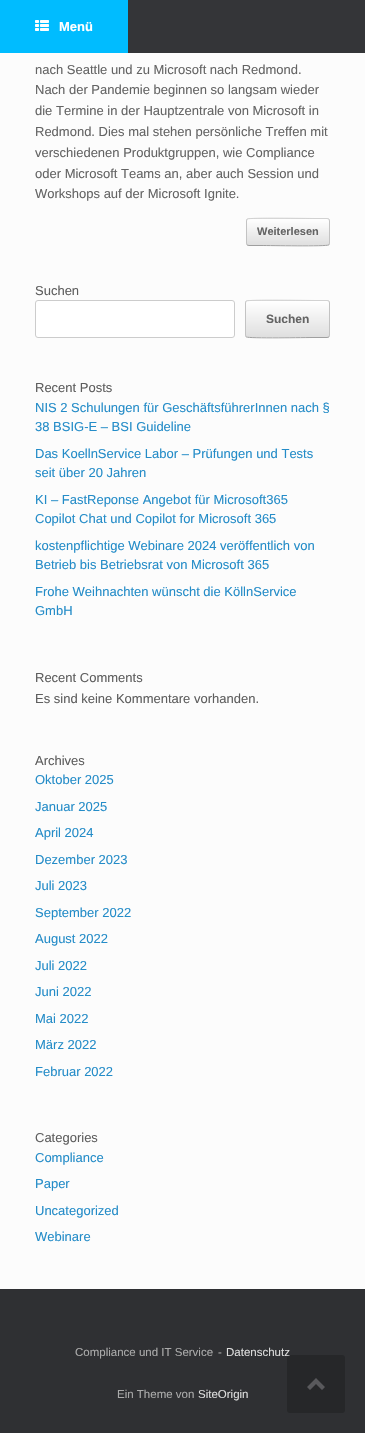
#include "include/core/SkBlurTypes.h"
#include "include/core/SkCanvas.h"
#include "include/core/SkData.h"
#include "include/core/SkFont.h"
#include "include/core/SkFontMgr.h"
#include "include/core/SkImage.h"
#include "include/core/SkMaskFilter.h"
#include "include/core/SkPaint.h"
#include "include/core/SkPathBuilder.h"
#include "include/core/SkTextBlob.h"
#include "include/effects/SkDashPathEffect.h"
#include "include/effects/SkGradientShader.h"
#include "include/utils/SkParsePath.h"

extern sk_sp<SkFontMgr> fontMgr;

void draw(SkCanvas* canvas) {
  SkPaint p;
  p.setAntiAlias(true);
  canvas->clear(SkColorSetRGB(47, 48, 51));
  p.setColor(SkColorSetRGB(52, 53, 56));
  canvas->drawRect(SkRect::MakeLTRB(128, 0, 365, 53), p);
  p.setColor(SkColorSetRGB(0, 188, 255));
  canvas->drawRect(SkRect::MakeLTRB(0, 0, 128, 53), p);
  canvas->drawImageRect(SkImages::DeferredFromEncodedData(SkData::MakeFromFileName("images/1.png")), SkRect::MakeLTRB(35, 20, 49, 31), SkSamplingOptions());
  p.setColor(SkColorSetRGB(252, 252, 252));
  canvas->drawRect(SkRect::MakeLTRB(0, 53, 365, 1289), p);
  canvas->save();
  canvas->clipPath(SkPathBuilder().moveTo(249, 218).lineTo(327, 218).cubicTo(328.5f, 218, 330, 219.5f, 330, 221).lineTo(330, 243).cubicTo(330, 244.5f, 328.5f, 246, 327, 246).lineTo(249, 246).cubicTo(247.5f, 246, 246, 244.5f, 246, 243).lineTo(246, 221).cubicTo(246, 219.5f, 247.5f, 218, 249, 218).close().detach(), true);
  {
    const SkColor colors[] = {SkColorSetRGB(223, 223, 223), SK_ColorWHITE};
    const float stops[] = {0, 1};
    const SkPoint ends[] = {{247, 219}, {247, 193}};
    p.setShader(SkGradientShader::MakeLinear(ends, colors, stops, 2, SkTileMode::kClamp));
    p.setAlpha(255);
  }
  canvas->drawRect(SkRect::MakeLTRB(246, 218, 330, 219), p);
  {
    const SkColor colors[] = {SkColorSetRGB(223, 223, 223), SK_ColorWHITE};
    const float stops[] = {0, 1};
    const SkPoint ends[] = {{247, 245}, {247, 219}};
    p.setShader(SkGradientShader::MakeLinear(ends, colors, stops, 2, SkTileMode::kClamp));
    p.setAlpha(255);
  }
  canvas->drawRect(SkRect::MakeLTRB(246, 219, 330, 245), p);
  canvas->restore();
  p.setStyle(SkPaint::kStroke_Style);
  p.setStrokeWidth(1);
  p.setShader(nullptr);
  p.setColor(SkColorSetRGB(210, 210, 210));
  canvas->drawPath(SkPathBuilder().moveTo(247, 219).lineTo(247.5f, 219).cubicTo(249.5f, 217.5f, 307, 218.5f, 314, 218.5f).lineTo(327, 218.5f).lineTo(329, 219).detach(), p);
  p.setColor(SkColorSetRGB(195, 195, 195));
  canvas->drawPath(SkPathBuilder().moveTo(329, 219).cubicTo(329, 219.5f, 329.5f, 220.5f, 329.5f, 221).lineTo(329.5f, 243).cubicTo(329.5f, 243.5f, 329, 244.5f, 329, 245).detach(), p);
  p.setColor(SkColorSetRGB(159, 159, 159));
  canvas->drawPath(SkPathBuilder().moveTo(329, 245).lineTo(328.5f, 245).cubicTo(326.5f, 246.5f, 269, 245.5f, 262, 245.5f).lineTo(249, 245.5f).lineTo(247, 245).detach(), p);
  p.setColor(SkColorSetRGB(195, 195, 195));
  canvas->drawPath(SkPathBuilder().moveTo(247, 245).cubicTo(247, 244.5f, 246.5f, 243.5f, 246.5f, 243).lineTo(246.5f, 221).cubicTo(246.5f, 220.5f, 247, 219.5f, 247, 219).detach(), p);
  p.setStyle(SkPaint::kFill_Style);
  p.setColor(SK_ColorWHITE);
  canvas->drawRoundRect(SkRect::MakeLTRB(35.5f, 300.5f, 234.5f, 337.5f), 2.5f, 2.5f, p);
  p.setStyle(SkPaint::kStroke_Style);
  p.setColor(SkColorSetRGB(204, 204, 204));
  canvas->drawRoundRect(SkRect::MakeLTRB(35.5f, 300.5f, 234.5f, 337.5f), 2.5f, 2.5f, p);
  canvas->save();
  canvas->clipPath(SkPathBuilder().moveTo(248, 300).lineTo(327, 300).cubicTo(328.5f, 300, 330, 301.5f, 330, 303).lineTo(330, 335).cubicTo(330, 336.5f, 328.5f, 338, 327, 338).lineTo(248, 338).cubicTo(246.5f, 338, 245, 336.5f, 245, 335).lineTo(245, 303).cubicTo(245, 301.5f, 246.5f, 300, 248, 300).close().detach(), true);
  p.setStyle(SkPaint::kFill_Style);
  {
    const SkColor colors[] = {SkColorSetRGB(223, 223, 223), SK_ColorWHITE};
    const float stops[] = {0, 1};
    const SkPoint ends[] = {{246, 301}, {246, 265}};
    p.setShader(SkGradientShader::MakeLinear(ends, colors, stops, 2, SkTileMode::kClamp));
    p.setAlpha(255);
  }
  canvas->drawRect(SkRect::MakeLTRB(245, 300, 330, 301), p);
  {
    const SkColor colors[] = {SkColorSetRGB(223, 223, 223), SK_ColorWHITE};
    const float stops[] = {0, 1};
    const SkPoint ends[] = {{246, 337}, {246, 301}};
    p.setShader(SkGradientShader::MakeLinear(ends, colors, stops, 2, SkTileMode::kClamp));
    p.setAlpha(255);
  }
  canvas->drawRect(SkRect::MakeLTRB(245, 301, 330, 337), p);
  {
    const SkColor colors[] = {SkColorSetRGB(223, 223, 223), SK_ColorWHITE};
    const float stops[] = {0, 1};
    const SkPoint ends[] = {{246, 373}, {246, 337}};
    p.setShader(SkGradientShader::MakeLinear(ends, colors, stops, 2, SkTileMode::kClamp));
    p.setAlpha(255);
  }
  canvas->drawRect(SkRect::MakeLTRB(245, 337, 330, 338), p);
  canvas->restore();
  p.setStyle(SkPaint::kStroke_Style);
  p.setShader(nullptr);
  p.setColor(SkColorSetRGB(210, 210, 210));
  canvas->drawPath(SkPathBuilder().moveTo(246, 301).lineTo(246.5f, 301).cubicTo(248.5f, 299.5f, 306.5f, 300.5f, 314, 300.5f).lineTo(327, 300.5f).lineTo(329, 301).detach(), p);
  p.setColor(SkColorSetRGB(195, 195, 195));
  canvas->drawPath(SkPathBuilder().moveTo(329, 301).cubicTo(329, 301.5f, 329.5f, 302.5f, 329.5f, 303).lineTo(329.5f, 335).cubicTo(329.5f, 335.5f, 329, 336.5f, 329, 337).detach(), p);
  p.setColor(SkColorSetRGB(159, 159, 159));
  canvas->drawPath(SkPathBuilder().moveTo(329, 337).lineTo(327, 337.5f).lineTo(314, 337.5f).cubicTo(306.5f, 337.5f, 248.5f, 338.5f, 246.5f, 337).lineTo(246, 337).detach(), p);
  p.setColor(SkColorSetRGB(195, 195, 195));
  canvas->drawPath(SkPathBuilder().moveTo(246, 337).cubicTo(246, 336.5f, 245.5f, 335.5f, 245.5f, 335).lineTo(245.5f, 303).cubicTo(245.5f, 302.5f, 246, 301.5f, 246, 301).detach(), p);
  SkFont font1(fontMgr->matchFamilyStyle("Liberation Sans", SkFontStyle::Bold()), 13);
  font1.setSubpixel(true);
  p.setStyle(SkPaint::kFill_Style);
  p.setColor(SK_ColorWHITE);
  canvas->drawString("Menü", 59, 31, font1, p);
  SkFont font2(fontMgr->matchFamilyStyle("Liberation Sans", SkFontStyle::Normal()), 13);
  font2.setSubpixel(true);
  p.setColor(SkColorSetRGB(100, 100, 100));
  canvas->drawString("nach Seattle und zu Microsoft nach Redmond.", 35, 74, font2, p);
  canvas->drawString("Nach der Pandemie beginnen so langsam wieder", 35, 94, font2, p);
  canvas->drawString("die Termine in der Hauptzentrale von Microsoft in", 35, 115, font2, p);
  canvas->drawString("Redmond. Dies mal stehen persönliche Treffen mit", 35, 136, font2, p);
  canvas->drawString("verschiedenen Produktgruppen, wie Compliance", 35, 157, font2, p);
  canvas->drawString("oder Microsoft Teams an, aber auch Session und", 35, 178, font2, p);
  canvas->drawString("Workshops auf der Microsoft Ignite.", 35, 198, font2, p);
  SkFont font3(fontMgr->matchFamilyStyle("Liberation Sans", SkFontStyle::Bold()), 11);
  font3.setSubpixel(true);
  canvas->drawString("Weiterlesen", 257, 235, font3, p);
  p.setColor(SkColorSetRGB(94, 94, 94));
  canvas->drawString("Suchen", 35, 295, font2, p);
  SkFont font4(fontMgr->matchFamilyStyle("Liberation Sans", SkFontStyle::Bold()), 12);
  font4.setSubpixel(true);
  p.setColor(SkColorSetRGB(100, 100, 100));
  canvas->drawString("Suchen", 266, 323, font4, p);
  p.setColor(SkColorSetRGB(94, 94, 94));
  canvas->drawString("Recent Posts", 35, 392, font2, p);
  p.setColor(SkColorSetRGB(36, 140, 200));
  canvas->drawString("NIS 2 Schulungen für GeschäftsführerInnen nach §", 35, 412, font2, p);
  canvas->drawString("38 BSIG-E – BSI Guideline", 35, 431, font2, p);
  canvas->drawString("Das KoellnService Labor – Prüfungen und Tests", 35, 458, font2, p);
  canvas->drawString("seit über 20 Jahren", 35, 477, font2, p);
  canvas->drawString("KI – FastReponse Angebot für Microsoft365", 35, 504, font2, p);
  canvas->drawString("Copilot Chat und Copilot for Microsoft 365", 35, 523, font2, p);
  canvas->drawString("kostenpflichtige Webinare 2024 veröffentlich von", 35, 550, font2, p);
  canvas->drawString("Betrieb bis Betriebsrat von Microsoft 365", 35, 569, font2, p);
  canvas->drawString("Frohe Weihnachten wünscht die KöllnService", 35, 596, font2, p);
  canvas->drawString("GmbH", 35, 615, font2, p);
  p.setColor(SkColorSetRGB(94, 94, 94));
  canvas->drawString("Recent Comments", 35, 682, font2, p);
  canvas->drawString("Es sind keine Kommentare vorhanden.", 35, 703, font2, p);
  canvas->drawString("Archives", 35, 765, font2, p);
  p.setColor(SkColorSetRGB(36, 140, 200));
  canvas->drawString("Oktober 2025", 35, 784, font2, p);
  canvas->drawString("Januar 2025", 35, 811, font2, p);
  canvas->drawString("April 2024", 35, 837, font2, p);
  canvas->drawString("Dezember 2023", 35, 864, font2, p);
  canvas->drawString("Juli 2023", 35, 890, font2, p);
  canvas->drawString("September 2022", 35, 917, font2, p);
  canvas->drawString("August 2022", 35, 943, font2, p);
  canvas->drawString("Juli 2022", 35, 970, font2, p);
  canvas->drawString("Juni 2022", 35, 996, font2, p);
  canvas->drawString("Mai 2022", 35, 1023, font2, p);
  canvas->drawString("März 2022", 35, 1049, font2, p);
  canvas->drawString("Februar 2022", 35, 1076, font2, p);
  p.setColor(SkColorSetRGB(94, 94, 94));
  canvas->drawString("Categories", 35, 1142, font2, p);
  p.setColor(SkColorSetRGB(36, 140, 200));
  canvas->drawString("Compliance", 35, 1162, font2, p);
  canvas->drawString("Paper", 35, 1188, font2, p);
  canvas->drawString("Uncategorized", 35, 1215, font2, p);
  canvas->drawString("Webinare", 35, 1241, font2, p);
  SkFont font5(fontMgr->matchFamilyStyle("Liberation Sans", SkFontStyle::Normal()), 11.5f);
  font5.setSubpixel(true);
  p.setColor(SkColorSetRGB(170, 170, 170));
  canvas->drawString("Compliance und IT Service", 75, 1356, font5, p);
  canvas->drawString("-", 218, 1356, font5, p);
  p.setColor(SkColorSetRGB(221, 221, 221));
  canvas->drawString("Datenschutz", 226, 1356, font5, p);
  p.setColor(SkColorSetRGB(170, 170, 170));
  canvas->drawString("Ein Theme von", 117, 1398, font5, p);
  p.setColor(SkColorSetRGB(221, 221, 221));
  canvas->drawString("SiteOrigin", 198, 1398, font5, p);
  p.setColor(SkColorSetARGB(51, 0, 0, 0));
  canvas->drawRoundRect(SkRect::MakeLTRB(287, 1355, 345, 1413), 3, 3, p);
  p.setColor(SkColorSetRGB(89, 89, 92));
  canvas->drawPath(SkPathBuilder().moveTo(325, 1387).lineTo(316, 1378).lineTo(307, 1387).lineTo(310, 1390).lineTo(316, 1384).lineTo(322, 1390).close().detach(), p);
}
